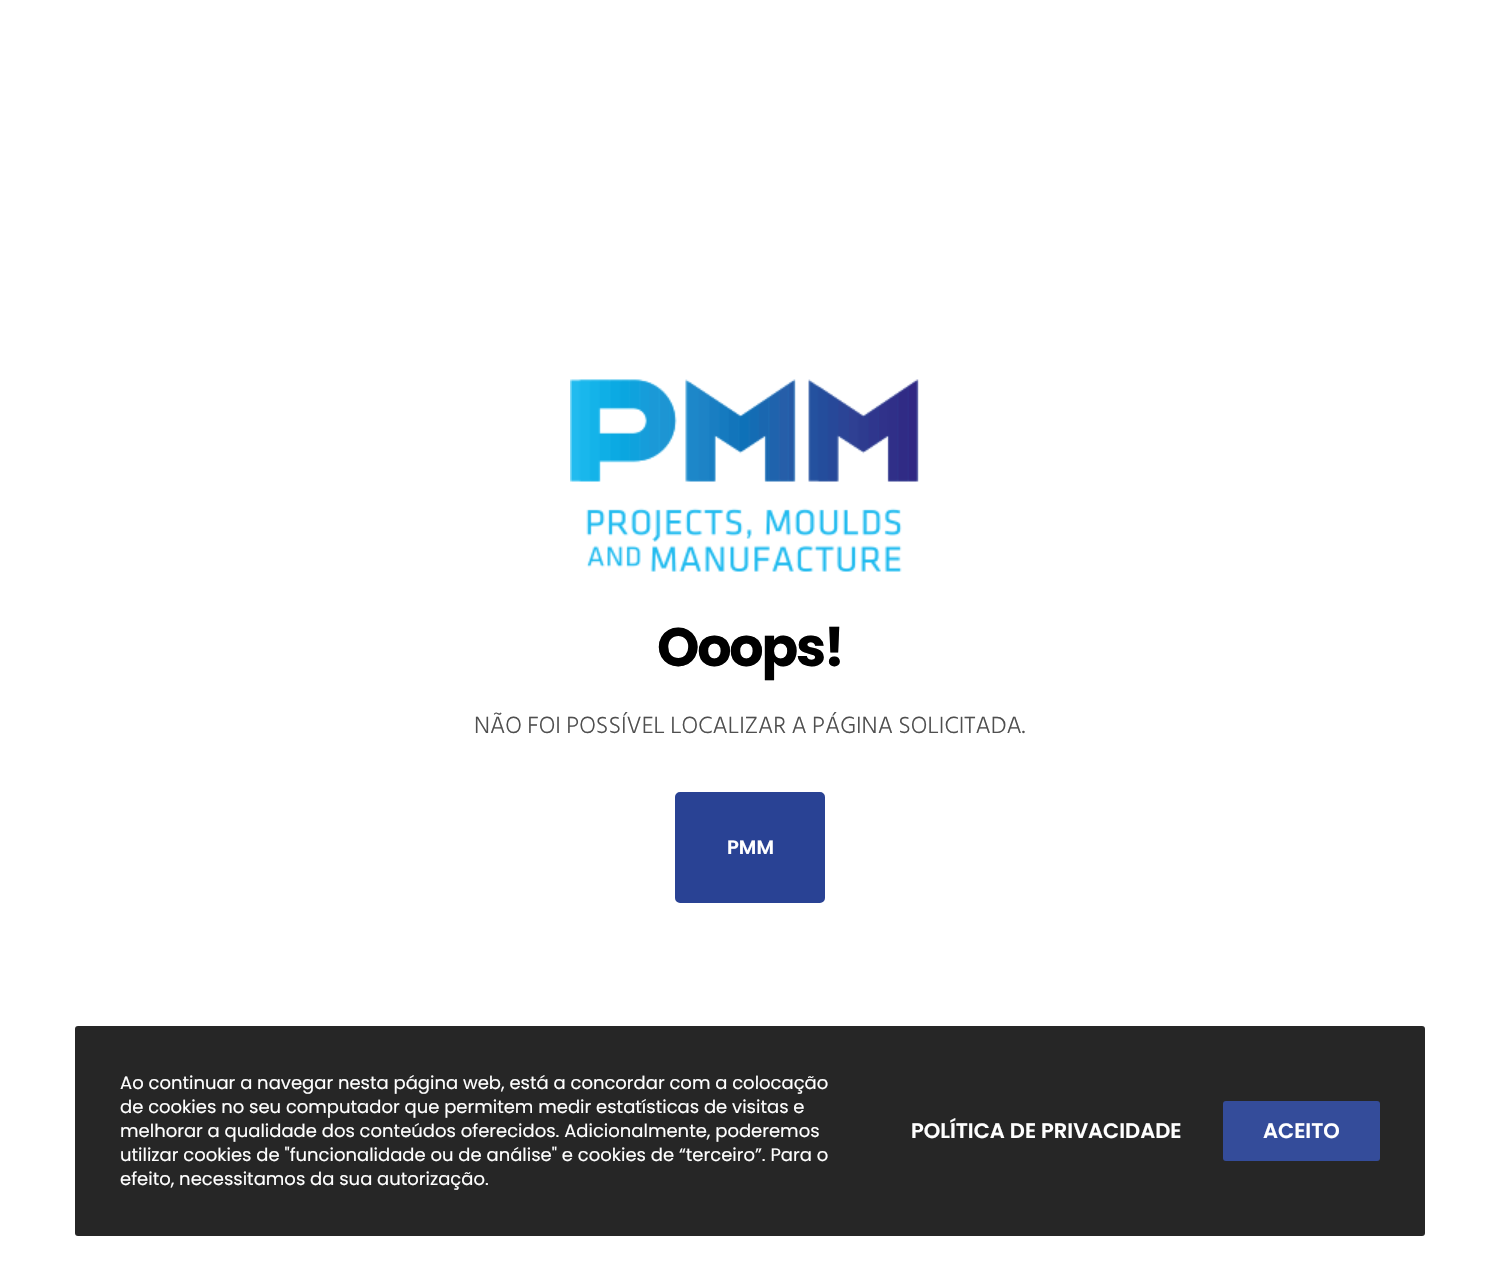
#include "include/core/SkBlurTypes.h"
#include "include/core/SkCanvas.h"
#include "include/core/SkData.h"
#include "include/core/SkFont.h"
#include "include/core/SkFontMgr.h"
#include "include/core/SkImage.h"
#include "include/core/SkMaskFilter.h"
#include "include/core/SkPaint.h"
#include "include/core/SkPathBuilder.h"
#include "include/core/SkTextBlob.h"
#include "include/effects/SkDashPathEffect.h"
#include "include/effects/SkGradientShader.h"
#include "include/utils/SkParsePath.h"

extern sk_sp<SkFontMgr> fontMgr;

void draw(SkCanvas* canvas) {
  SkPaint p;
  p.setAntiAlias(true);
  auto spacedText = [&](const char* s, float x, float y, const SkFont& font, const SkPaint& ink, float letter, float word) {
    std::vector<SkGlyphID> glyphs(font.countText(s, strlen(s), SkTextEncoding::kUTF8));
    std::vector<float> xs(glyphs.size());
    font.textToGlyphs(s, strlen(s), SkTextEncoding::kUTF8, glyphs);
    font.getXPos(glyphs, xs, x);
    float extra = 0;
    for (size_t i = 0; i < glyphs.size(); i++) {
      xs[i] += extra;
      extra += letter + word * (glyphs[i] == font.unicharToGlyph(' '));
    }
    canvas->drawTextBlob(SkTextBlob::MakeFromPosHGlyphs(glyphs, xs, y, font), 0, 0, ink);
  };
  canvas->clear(SK_ColorWHITE);
  canvas->drawImageRect(SkImages::DeferredFromEncodedData(SkData::MakeFromFileName("images/1.png")), SkRect::MakeLTRB(570, 379, 919, 572), SkSamplingOptions());
  p.setColor(SkColorSetRGB(41, 66, 148));
  canvas->drawRoundRect(SkRect::MakeLTRB(676, 793, 824, 902), 4, 4, p);
  p.setStyle(SkPaint::kStroke_Style);
  p.setStrokeWidth(2);
  canvas->drawRoundRect(SkRect::MakeLTRB(676, 793, 824, 902), 4, 4, p);
  p.setStyle(SkPaint::kFill_Style);
  p.setColor(SkColorSetRGB(38, 38, 38));
  canvas->drawRoundRect(SkRect::MakeLTRB(75, 1026, 1425, 1236), 3, 3, p);
  p.setColor(SkColorSetRGB(52, 76, 154));
  canvas->drawRoundRect(SkRect::MakeLTRB(1223, 1101, 1380, 1161), 3, 3, p);
  SkFont font1(fontMgr->matchFamilyStyle("Poppins", SkFontStyle::Bold()), 54);
  font1.setSubpixel(true);
  p.setColor(SK_ColorBLACK);
  spacedText("Ooops!", 657, 666, font1, p, -2.25f, 0);
  SkFont font2(fontMgr->matchFamilyStyle("Hind Siliguri", SkFontStyle(300, SkFontStyle::kNormal_Width, SkFontStyle::kUpright_Slant)), 24);
  font2.setSubpixel(true);
  p.setColor(SkColorSetRGB(79, 79, 79));
  canvas->drawString("NÃO FOI POSSÍVEL LOCALIZAR A PÁGINA SOLICITADA.", 474, 733, font2, p);
  SkFont font3(fontMgr->matchFamilyStyle("Poppins", SkFontStyle(600, SkFontStyle::kNormal_Width, SkFontStyle::kUpright_Slant)), 19.5f);
  font3.setSubpixel(true);
  p.setColor(SK_ColorWHITE);
  canvas->drawString("PMM", 727, 854, font3, p);
  SkFont font4(fontMgr->matchFamilyStyle("Poppins", SkFontStyle::Normal()), 18);
  font4.setSubpixel(true);
  canvas->drawString("Ao continuar a navegar nesta página web, está a concordar com a colocação", 120, 1089, font4, p);
  canvas->drawString("de cookies no seu computador que permitem medir estatísticas de visitas e", 120, 1113, font4, p);
  canvas->drawString("melhorar a qualidade dos conteúdos oferecidos. Adicionalmente, poderemos", 120, 1137, font4, p);
  canvas->drawString("utilizar cookies de \"funcionalidade ou de análise\" e cookies de “terceiro”. Para o", 120, 1161, font4, p);
  canvas->drawString("efeito, necessitamos da sua autorização.", 120, 1185, font4, p);
  SkFont font5(fontMgr->matchFamilyStyle("Poppins", SkFontStyle(600, SkFontStyle::kNormal_Width, SkFontStyle::kUpright_Slant)), 21);
  font5.setSubpixel(true);
  canvas->drawString("POLÍTICA DE PRIVACIDADE", 911, 1138, font5, p);
  canvas->drawString("ACEITO", 1263, 1138, font5, p);
}
